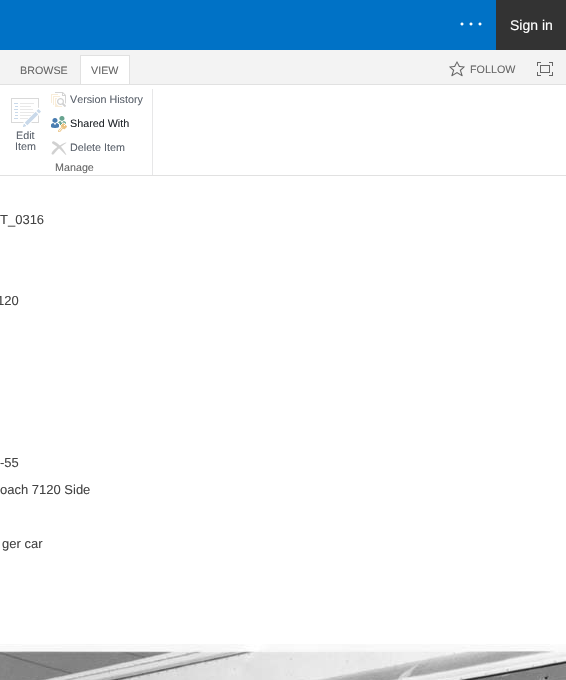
#include "include/core/SkBlurTypes.h"
#include "include/core/SkCanvas.h"
#include "include/core/SkData.h"
#include "include/core/SkFont.h"
#include "include/core/SkFontMgr.h"
#include "include/core/SkImage.h"
#include "include/core/SkMaskFilter.h"
#include "include/core/SkPaint.h"
#include "include/core/SkPathBuilder.h"
#include "include/core/SkTextBlob.h"
#include "include/effects/SkDashPathEffect.h"
#include "include/effects/SkGradientShader.h"
#include "include/utils/SkParsePath.h"

extern sk_sp<SkFontMgr> fontMgr;

void draw(SkCanvas* canvas) {
  SkPaint p;
  p.setAntiAlias(true);
  canvas->clear(SK_ColorWHITE);
  p.setColor(SkColorSetRGB(0, 114, 198));
  canvas->drawRect(SkRect::MakeLTRB(0, 0, 496, 50), p);
  canvas->drawImageRect(SkImages::DeferredFromEncodedData(SkData::MakeFromFileName("images/1.png")), SkRect::MakeLTRB(460, 22, 482, 26), SkSamplingOptions());
  p.setColor(SkColorSetRGB(51, 51, 51));
  canvas->drawRect(SkRect::MakeLTRB(496, 0, 566, 50), p);
  p.setColor(SkColorSetRGB(243, 243, 243));
  canvas->drawRect(SkRect::MakeLTRB(0, 50, 566, 84), p);
  p.setColor(SkColorSetRGB(225, 225, 225));
  canvas->drawRect(SkRect::MakeLTRB(0, 84, 566, 85), p);
  p.setColor(SK_ColorWHITE);
  canvas->drawRect(SkRect::MakeLTRB(81, 56, 129, 84), p);
  p.setColor(SkColorSetRGB(225, 225, 225));
  canvas->drawRect(SkRect::MakeLTRB(80, 55, 130, 56), p);
  canvas->drawRect(SkRect::MakeLTRB(129, 55, 130, 84), p);
  canvas->drawRect(SkRect::MakeLTRB(80, 55, 81, 84), p);
  canvas->drawImageRect(SkImages::DeferredFromEncodedData(SkData::MakeFromFileName("images/2.png")), SkRect::MakeLTRB(449, 61, 465, 77), SkSamplingOptions());
  canvas->drawImageRect(SkImages::DeferredFromEncodedData(SkData::MakeFromFileName("images/3.png")), SkRect::MakeLTRB(537, 62, 553, 76), SkSamplingOptions());
  canvas->drawRect(SkRect::MakeLTRB(0, 175, 566, 176), p);
  canvas->drawImageRect(SkImages::DeferredFromEncodedData(SkData::MakeFromFileName("images/4.png")), SkRect::MakeLTRB(11, 98, 41, 127), SkSamplingOptions());
  canvas->drawImageRect(SkImages::DeferredFromEncodedData(SkData::MakeFromFileName("images/5.png")), SkRect::MakeLTRB(51, 92, 66, 107), SkSamplingOptions());
  canvas->drawImageRect(SkImages::DeferredFromEncodedData(SkData::MakeFromFileName("images/6.png")), SkRect::MakeLTRB(51, 116, 67, 132), SkSamplingOptions());
  canvas->drawImageRect(SkImages::DeferredFromEncodedData(SkData::MakeFromFileName("images/7.png")), SkRect::MakeLTRB(51, 141, 67, 155), SkSamplingOptions());
  p.setColor(SkColorSetRGB(231, 231, 232));
  canvas->drawRect(SkRect::MakeLTRB(152, 89, 153, 175), p);
  canvas->drawImageRect(SkImages::DeferredFromEncodedData(SkData::MakeFromFileName("images/8.png")), SkRect::MakeLTRB(0, 644, 566, 680), SkSamplingOptions());
  SkFont font1(fontMgr->matchFamilyStyle("Liberation Sans", SkFontStyle::Normal()), 14);
  font1.setSubpixel(true);
  p.setColor(SK_ColorWHITE);
  canvas->drawString("Sign in", 510, 30, font1, p);
  SkFont font2(fontMgr->matchFamilyStyle("Liberation Sans", SkFontStyle::Normal()), 10.75f);
  font2.setSubpixel(true);
  p.setColor(SkColorSetRGB(102, 102, 102));
  canvas->drawString("BROWSE", 20, 74, font2, p);
  canvas->drawString("VIEW", 91, 74, font2, p);
  canvas->drawString("FOLLOW", 470, 73, font2, p);
  p.setColor(SkColorSetRGB(91, 98, 108));
  canvas->drawString("Edit", 16, 139, font2, p);
  canvas->drawString("Item", 15, 150, font2, p);
  canvas->drawString("Version History", 70, 103, font2, p);
  p.setColor(SkColorSetRGB(35, 39, 44));
  canvas->drawString("Shared With", 70, 127, font2, p);
  p.setColor(SkColorSetRGB(91, 98, 108));
  canvas->drawString("Delete Item", 70, 151, font2, p);
  p.setColor(SkColorSetRGB(102, 102, 102));
  canvas->drawString("Manage", 55, 171, font2, p);
  SkFont font3(fontMgr->matchFamilyStyle("Liberation Sans", SkFontStyle::Normal()), 13);
  font3.setSubpixel(true);
  p.setColor(SkColorSetRGB(68, 68, 68));
  canvas->drawString("T_0316", 0, 224, font3, p);
  canvas->drawString("120", -3, 305, font3, p);
  canvas->drawString("-55", 0, 467, font3, p);
  canvas->drawString("oach 7120 Side", 0, 494, font3, p);
  canvas->drawString("ger car", 2, 548, font3, p);
}
